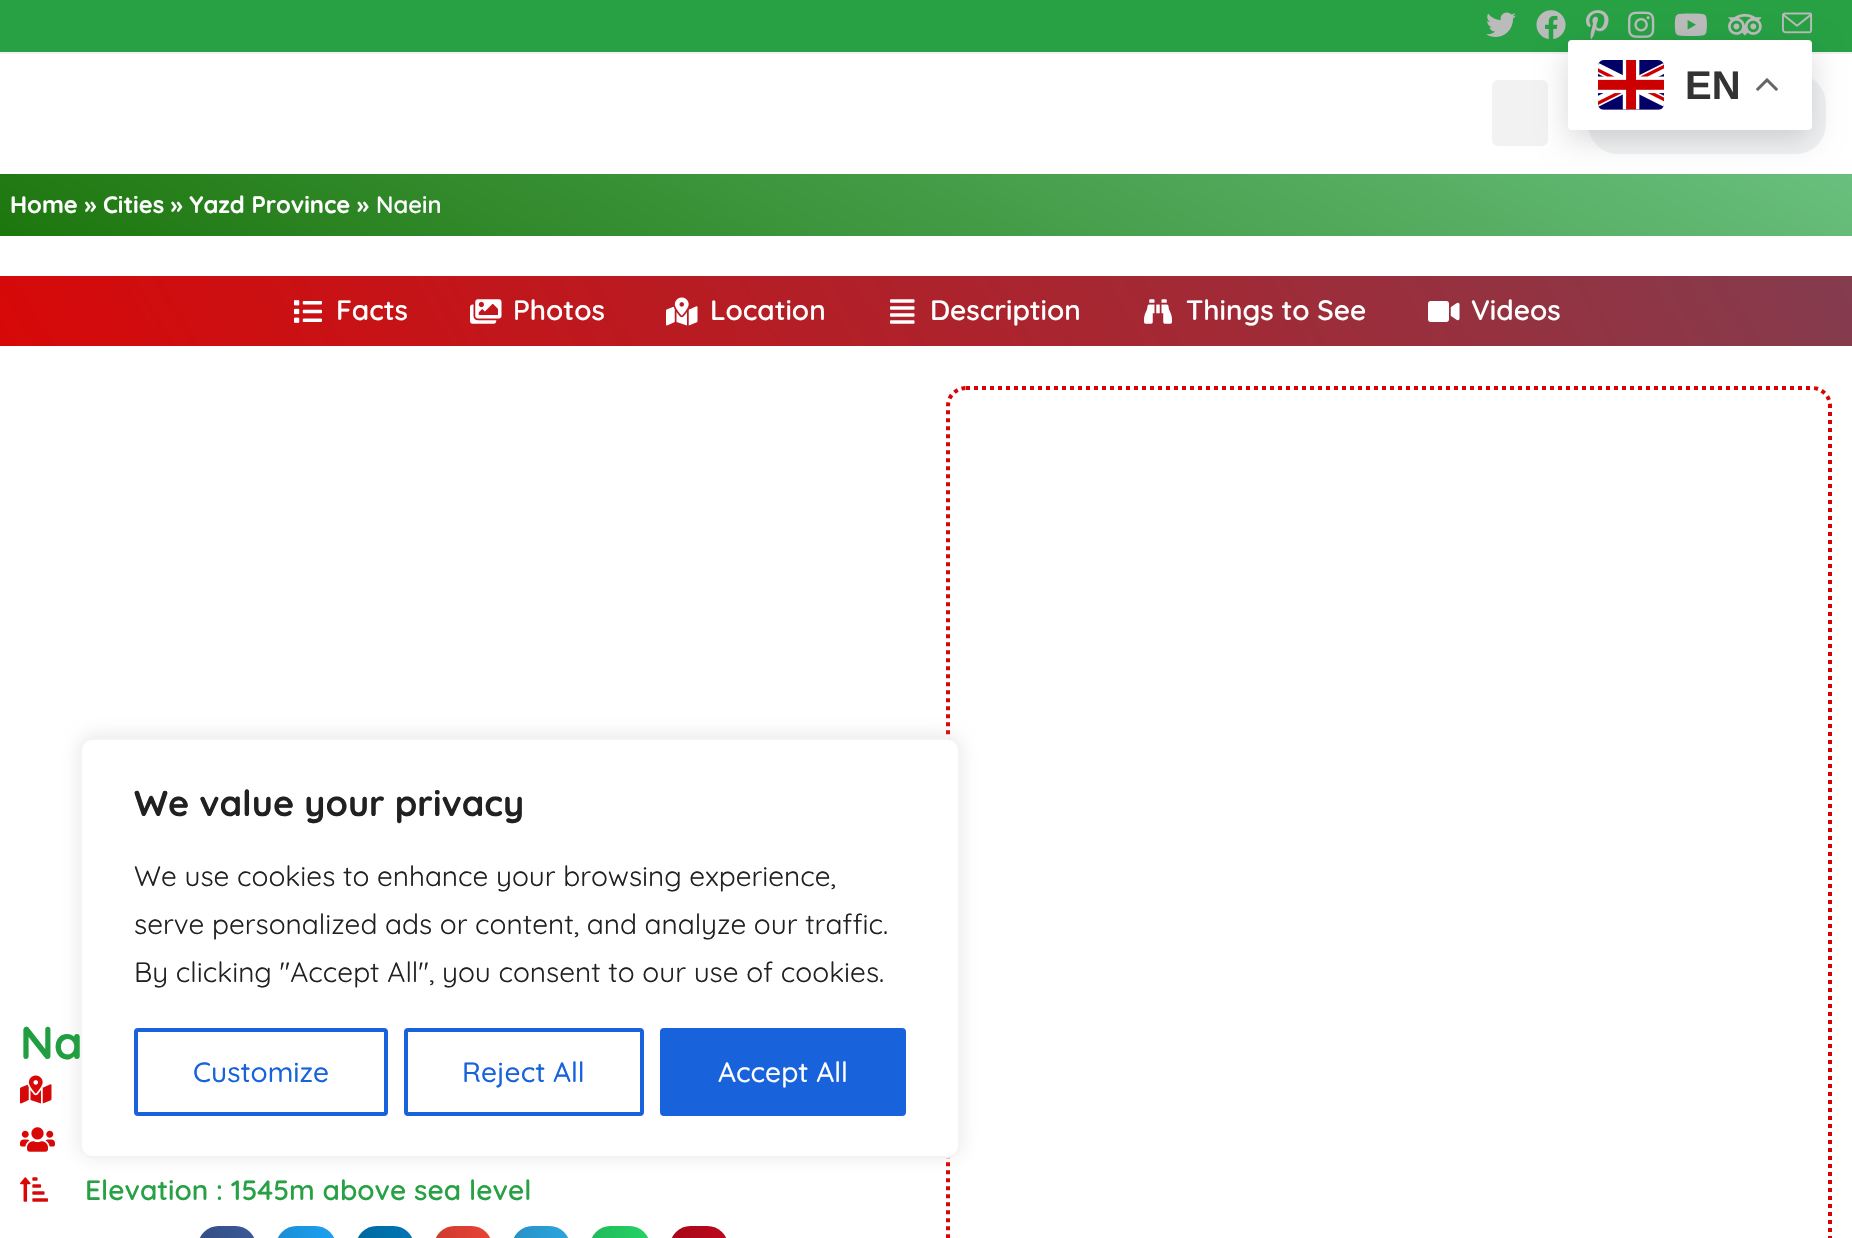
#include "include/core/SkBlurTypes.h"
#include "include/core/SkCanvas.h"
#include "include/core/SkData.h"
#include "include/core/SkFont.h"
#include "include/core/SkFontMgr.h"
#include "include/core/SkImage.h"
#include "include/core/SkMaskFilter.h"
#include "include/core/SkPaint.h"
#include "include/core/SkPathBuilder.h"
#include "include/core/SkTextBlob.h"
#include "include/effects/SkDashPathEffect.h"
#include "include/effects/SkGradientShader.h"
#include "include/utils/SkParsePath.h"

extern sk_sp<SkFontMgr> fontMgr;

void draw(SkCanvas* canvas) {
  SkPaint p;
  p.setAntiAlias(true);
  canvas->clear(SK_ColorWHITE);
  p.setColor(SkColorSetRGB(39, 161, 68));
  canvas->drawRect(SkRect::MakeLTRB(0, 0, 1852, 52), p);
  p.setColor(SkColorSetRGB(241, 241, 241));
  canvas->drawRect(SkRect::MakeLTRB(0, 52, 1852, 54), p);
  canvas->drawImageRect(SkImages::DeferredFromEncodedData(SkData::MakeFromFileName("images/4.png")), SkRect::MakeLTRB(1536, 10, 1566, 39), SkSamplingOptions());
  canvas->drawImageRect(SkImages::DeferredFromEncodedData(SkData::MakeFromFileName("images/5.png")), SkRect::MakeLTRB(1586, 10, 1609, 40), SkSamplingOptions());
  canvas->drawImageRect(SkImages::DeferredFromEncodedData(SkData::MakeFromFileName("images/6.png")), SkRect::MakeLTRB(1628, 11, 1655, 38), SkSamplingOptions());
  canvas->drawImageRect(SkImages::DeferredFromEncodedData(SkData::MakeFromFileName("images/7.png")), SkRect::MakeLTRB(1674, 13, 1707, 36), SkSamplingOptions());
  canvas->drawImageRect(SkImages::DeferredFromEncodedData(SkData::MakeFromFileName("images/8.png")), SkRect::MakeLTRB(1728, 13, 1762, 36), SkSamplingOptions());
  canvas->drawImageRect(SkImages::DeferredFromEncodedData(SkData::MakeFromFileName("images/9.png")), SkRect::MakeLTRB(1782, 12, 1813, 34), SkSamplingOptions());
  p.setColor(SkColorSetRGB(242, 242, 242));
  canvas->drawRoundRect(SkRect::MakeLTRB(1492, 80, 1548, 146), 6, 6, p);
  p.setColor(SkColorSetRGB(241, 242, 243));
  canvas->drawRoundRect(SkRect::MakeLTRB(1588, 74, 1826, 154), 30, 30, p);
  {
    const SkColor colors[] = {SkColorSetRGB(105, 191, 125), SkColorSetRGB(29, 118, 13)};
    const float stops[] = {0, 1};
    const SkPoint ends[] = {{1171, -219}, {681, 629}};
    p.setShader(SkGradientShader::MakeLinear(ends, colors, stops, 2, SkTileMode::kClamp));
    p.setAlpha(255);
  }
  canvas->drawRect(SkRect::MakeLTRB(0, 174, 1852, 236), p);
  p.setShader(nullptr);
  p.setColor(SkColorSetARGB(38, 0, 0, 0));
  p.setMaskFilter(SkMaskFilter::MakeBlur(kNormal_SkBlurStyle, 15));
  canvas->drawRoundRect(SkRect::MakeLTRB(1568, 50, 1812, 140), 4, 4, p);
  p.setMaskFilter(nullptr);
  p.setColor(SK_ColorWHITE);
  canvas->drawRoundRect(SkRect::MakeLTRB(1568, 40, 1812, 130), 4, 4, p);
  canvas->drawImageRect(SkImages::DeferredFromEncodedData(SkData::MakeFromFileName("images/1.png")), SkRect::MakeLTRB(1598, 60, 1664, 110), SkSamplingOptions());
  canvas->drawImageRect(SkImages::DeferredFromEncodedData(SkData::MakeFromFileName("images/2.png")), SkRect::MakeLTRB(1756, 78, 1778, 91), SkSamplingOptions());
  canvas->drawImageRect(SkImages::DeferredFromEncodedData(SkData::MakeFromFileName("images/3.png")), SkRect::MakeLTRB(1486, 12, 1516, 37), SkSamplingOptions());
  {
    const SkColor colors[] = {SkColorSetRGB(216, 8, 8), SkColorSetRGB(132, 60, 78)};
    const float stops[] = {0, 1};
    const SkPoint ends[] = {{216, 721}, {1636, -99}};
    p.setShader(SkGradientShader::MakeLinear(ends, colors, stops, 2, SkTileMode::kClamp));
    p.setAlpha(255);
  }
  canvas->drawRect(SkRect::MakeLTRB(0, 276, 1852, 346), p);
  canvas->drawImageRect(SkImages::DeferredFromEncodedData(SkData::MakeFromFileName("images/10.png")), SkRect::MakeLTRB(294, 300, 322, 323), SkSamplingOptions());
  canvas->drawImageRect(SkImages::DeferredFromEncodedData(SkData::MakeFromFileName("images/11.png")), SkRect::MakeLTRB(470, 299, 502, 324), SkSamplingOptions());
  canvas->drawImageRect(SkImages::DeferredFromEncodedData(SkData::MakeFromFileName("images/12.png")), SkRect::MakeLTRB(666, 297, 698, 326), SkSamplingOptions());
  canvas->drawImageRect(SkImages::DeferredFromEncodedData(SkData::MakeFromFileName("images/13.png")), SkRect::MakeLTRB(890, 299, 915, 324), SkSamplingOptions());
  canvas->drawImageRect(SkImages::DeferredFromEncodedData(SkData::MakeFromFileName("images/14.png")), SkRect::MakeLTRB(1144, 299, 1172, 324), SkSamplingOptions());
  canvas->drawImageRect(SkImages::DeferredFromEncodedData(SkData::MakeFromFileName("images/15.png")), SkRect::MakeLTRB(1428, 301, 1460, 322), SkSamplingOptions());
  canvas->drawImageRect(SkImages::DeferredFromEncodedData(SkData::MakeFromFileName("images/16.png")), SkRect::MakeLTRB(20, 1075, 52, 1104), SkSamplingOptions());
  canvas->drawImageRect(SkImages::DeferredFromEncodedData(SkData::MakeFromFileName("images/17.png")), SkRect::MakeLTRB(20, 1127, 55, 1152), SkSamplingOptions());
  canvas->drawImageRect(SkImages::DeferredFromEncodedData(SkData::MakeFromFileName("images/18.png")), SkRect::MakeLTRB(20, 1177, 49, 1202), SkSamplingOptions());
  p.setShader(nullptr);
  p.setColor(SkColorSetRGB(59, 89, 152));
  canvas->drawRoundRect(SkRect::MakeLTRB(198, 1226, 256, 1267), 29, 29, p);
  {
    const SkColor colors[] = {SkColorSetARGB(31, 0, 0, 0), SkColorSetARGB(0, 0, 0, 0)};
    const float stops[] = {0, 1};
    const SkPoint ends[] = {{198, 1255}, {256, 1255}};
    p.setShader(SkGradientShader::MakeLinear(ends, colors, stops, 2, SkTileMode::kClamp));
    p.setAlpha(255);
  }
  canvas->drawRoundRect(SkRect::MakeLTRB(198, 1226, 256, 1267), 29, 29, p);
  p.setShader(nullptr);
  p.setColor(SkColorSetRGB(29, 161, 242));
  canvas->drawRoundRect(SkRect::MakeLTRB(276, 1226, 336, 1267), 29, 29, p);
  {
    const SkColor colors[] = {SkColorSetARGB(31, 0, 0, 0), SkColorSetARGB(0, 0, 0, 0)};
    const float stops[] = {0, 1};
    const SkPoint ends[] = {{276, 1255}, {336, 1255}};
    p.setShader(SkGradientShader::MakeLinear(ends, colors, stops, 2, SkTileMode::kClamp));
    p.setAlpha(255);
  }
  canvas->drawRoundRect(SkRect::MakeLTRB(276, 1226, 336, 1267), 29, 29, p);
  p.setShader(nullptr);
  p.setColor(SkColorSetRGB(0, 119, 181));
  canvas->drawRoundRect(SkRect::MakeLTRB(356, 1226, 414, 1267), 29, 29, p);
  {
    const SkColor colors[] = {SkColorSetARGB(31, 0, 0, 0), SkColorSetARGB(0, 0, 0, 0)};
    const float stops[] = {0, 1};
    const SkPoint ends[] = {{356, 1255}, {414, 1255}};
    p.setShader(SkGradientShader::MakeLinear(ends, colors, stops, 2, SkTileMode::kClamp));
    p.setAlpha(255);
  }
  canvas->drawRoundRect(SkRect::MakeLTRB(356, 1226, 414, 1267), 29, 29, p);
  p.setShader(nullptr);
  p.setColor(SkColorSetRGB(234, 67, 53));
  canvas->drawRoundRect(SkRect::MakeLTRB(434, 1226, 492, 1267), 29, 29, p);
  {
    const SkColor colors[] = {SkColorSetARGB(31, 0, 0, 0), SkColorSetARGB(0, 0, 0, 0)};
    const float stops[] = {0, 1};
    const SkPoint ends[] = {{434, 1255}, {492, 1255}};
    p.setShader(SkGradientShader::MakeLinear(ends, colors, stops, 2, SkTileMode::kClamp));
    p.setAlpha(255);
  }
  canvas->drawRoundRect(SkRect::MakeLTRB(434, 1226, 492, 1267), 29, 29, p);
  p.setShader(nullptr);
  p.setColor(SkColorSetRGB(44, 165, 224));
  canvas->drawRoundRect(SkRect::MakeLTRB(512, 1226, 570, 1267), 29, 29, p);
  {
    const SkColor colors[] = {SkColorSetARGB(31, 0, 0, 0), SkColorSetARGB(0, 0, 0, 0)};
    const float stops[] = {0, 1};
    const SkPoint ends[] = {{512, 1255}, {570, 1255}};
    p.setShader(SkGradientShader::MakeLinear(ends, colors, stops, 2, SkTileMode::kClamp));
    p.setAlpha(255);
  }
  canvas->drawRoundRect(SkRect::MakeLTRB(512, 1226, 570, 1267), 29, 29, p);
  p.setShader(nullptr);
  p.setColor(SkColorSetRGB(37, 211, 102));
  canvas->drawRoundRect(SkRect::MakeLTRB(590, 1226, 650, 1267), 29, 29, p);
  {
    const SkColor colors[] = {SkColorSetARGB(31, 0, 0, 0), SkColorSetARGB(0, 0, 0, 0)};
    const float stops[] = {0, 1};
    const SkPoint ends[] = {{590, 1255}, {650, 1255}};
    p.setShader(SkGradientShader::MakeLinear(ends, colors, stops, 2, SkTileMode::kClamp));
    p.setAlpha(255);
  }
  canvas->drawRoundRect(SkRect::MakeLTRB(590, 1226, 650, 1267), 29, 29, p);
  p.setShader(nullptr);
  p.setColor(SkColorSetRGB(189, 8, 28));
  canvas->drawRoundRect(SkRect::MakeLTRB(670, 1226, 728, 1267), 29, 29, p);
  {
    const SkColor colors[] = {SkColorSetARGB(31, 0, 0, 0), SkColorSetARGB(0, 0, 0, 0)};
    const float stops[] = {0, 1};
    const SkPoint ends[] = {{670, 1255}, {728, 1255}};
    p.setShader(SkGradientShader::MakeLinear(ends, colors, stops, 2, SkTileMode::kClamp));
    p.setAlpha(255);
  }
  canvas->drawRoundRect(SkRect::MakeLTRB(670, 1226, 728, 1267), 29, 29, p);
  p.setStyle(SkPaint::kStroke_Style);
  p.setStrokeWidth(4);
  p.setShader(nullptr);
  p.setColor(SkColorSetRGB(219, 2, 3));
  p.setPathEffect(SkDashPathEffect::Make({{4, 4}}, 0));
  canvas->drawPath(SkPathBuilder().moveTo(966, 388).lineTo(1812, 388).cubicTo(1822, 388, 1830, 396, 1830, 406).lineTo(1830, 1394).cubicTo(1830, 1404, 1822, 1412, 1812, 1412).lineTo(966, 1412).cubicTo(956, 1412, 948, 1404, 948, 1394).lineTo(948, 406).cubicTo(948, 396, 956, 388, 966, 388).close().detach(), p);
  p.setPathEffect(nullptr);
  p.setStyle(SkPaint::kFill_Style);
  p.setColor(SkColorSetARGB(77, 172, 171, 171));
  p.setMaskFilter(SkMaskFilter::MakeBlur(kNormal_SkBlurStyle, 10));
  canvas->drawRoundRect(SkRect::MakeLTRB(80, 736, 960, 1156), 12, 12, p);
  p.setMaskFilter(nullptr);
  p.setColor(SK_ColorWHITE);
  canvas->drawRoundRect(SkRect::MakeLTRB(81, 739, 959, 1157), 11, 11, p);
  p.setStyle(SkPaint::kStroke_Style);
  p.setStrokeWidth(2);
  p.setColor(SkColorSetRGB(244, 244, 244));
  canvas->drawRoundRect(SkRect::MakeLTRB(81, 739, 959, 1157), 11, 11, p);
  p.setStrokeWidth(4);
  p.setColor(SkColorSetRGB(24, 99, 220));
  canvas->drawRoundRect(SkRect::MakeLTRB(136, 1030, 386, 1114), 2, 2, p);
  canvas->drawRoundRect(SkRect::MakeLTRB(406, 1030, 642, 1114), 2, 2, p);
  p.setStyle(SkPaint::kFill_Style);
  canvas->drawRoundRect(SkRect::MakeLTRB(662, 1030, 904, 1114), 2, 2, p);
  p.setStyle(SkPaint::kStroke_Style);
  canvas->drawRoundRect(SkRect::MakeLTRB(662, 1030, 904, 1114), 2, 2, p);
  SkFont font1(fontMgr->matchFamilyStyle("Liberation Sans", SkFontStyle::Bold()), 40);
  font1.setSubpixel(true);
  p.setStyle(SkPaint::kFill_Style);
  p.setColor(SkColorSetRGB(51, 51, 51));
  canvas->drawString("EN", 1685, 99, font1, p);
  SkFont font2(fontMgr->matchFamilyStyle("Quicksand", SkFontStyle::Bold()), 23.75f);
  font2.setSubpixel(true);
  p.setColor(SK_ColorWHITE);
  canvas->drawString("Home » Cities » Yazd Province »", 10, 213, font2, p);
  SkFont font3(fontMgr->matchFamilyStyle("Quicksand", SkFontStyle(600, SkFontStyle::kNormal_Width, SkFontStyle::kUpright_Slant)), 23.75f);
  font3.setSubpixel(true);
  canvas->drawString("Naein", 376, 213, font3, p);
  SkFont font4(fontMgr->matchFamilyStyle("Quicksand", SkFontStyle(600, SkFontStyle::kNormal_Width, SkFontStyle::kUpright_Slant)), 28);
  font4.setSubpixel(true);
  canvas->drawString("Facts", 336, 320, font4, p);
  canvas->drawString("Photos", 513, 320, font4, p);
  canvas->drawString("Location", 710, 320, font4, p);
  canvas->drawString("Description", 930, 320, font4, p);
  canvas->drawString("Things to See", 1186, 320, font4, p);
  canvas->drawString("Videos", 1471, 320, font4, p);
  SkFont font5(fontMgr->matchFamilyStyle("Quicksand", SkFontStyle::Bold()), 46);
  font5.setSubpixel(true);
  p.setColor(SkColorSetRGB(33, 158, 64));
  canvas->drawString("Na", 20, 1059, font5, p);
  p.setColor(SkColorSetRGB(39, 161, 68));
  canvas->drawString("Elevation : 1545m above sea level", 85, 1200, font4, p);
  SkFont font6(fontMgr->matchFamilyStyle("Quicksand", SkFontStyle::Bold()), 36);
  font6.setSubpixel(true);
  p.setColor(SkColorSetRGB(33, 33, 33));
  canvas->drawString("We value your privacy", 134, 816, font6, p);
  SkFont font7(fontMgr->matchFamilyStyle("Quicksand", SkFontStyle::Normal()), 28);
  font7.setSubpixel(true);
  canvas->drawString("We use cookies to enhance your browsing experience,", 134, 886, font7, p);
  canvas->drawString("serve personalized ads or content, and analyze our traffic.", 134, 934, font7, p);
  canvas->drawString("By clicking \"Accept All\", you consent to our use of cookies.", 134, 982, font7, p);
  SkFont font8(fontMgr->matchFamilyStyle("Quicksand", SkFontStyle(500, SkFontStyle::kNormal_Width, SkFontStyle::kUpright_Slant)), 28);
  font8.setSubpixel(true);
  p.setColor(SkColorSetRGB(24, 99, 220));
  canvas->drawString("Customize", 193, 1082, font8, p);
  canvas->drawString("Reject All", 462, 1082, font8, p);
  p.setColor(SK_ColorWHITE);
  canvas->drawString("Accept All", 718, 1082, font8, p);
}
